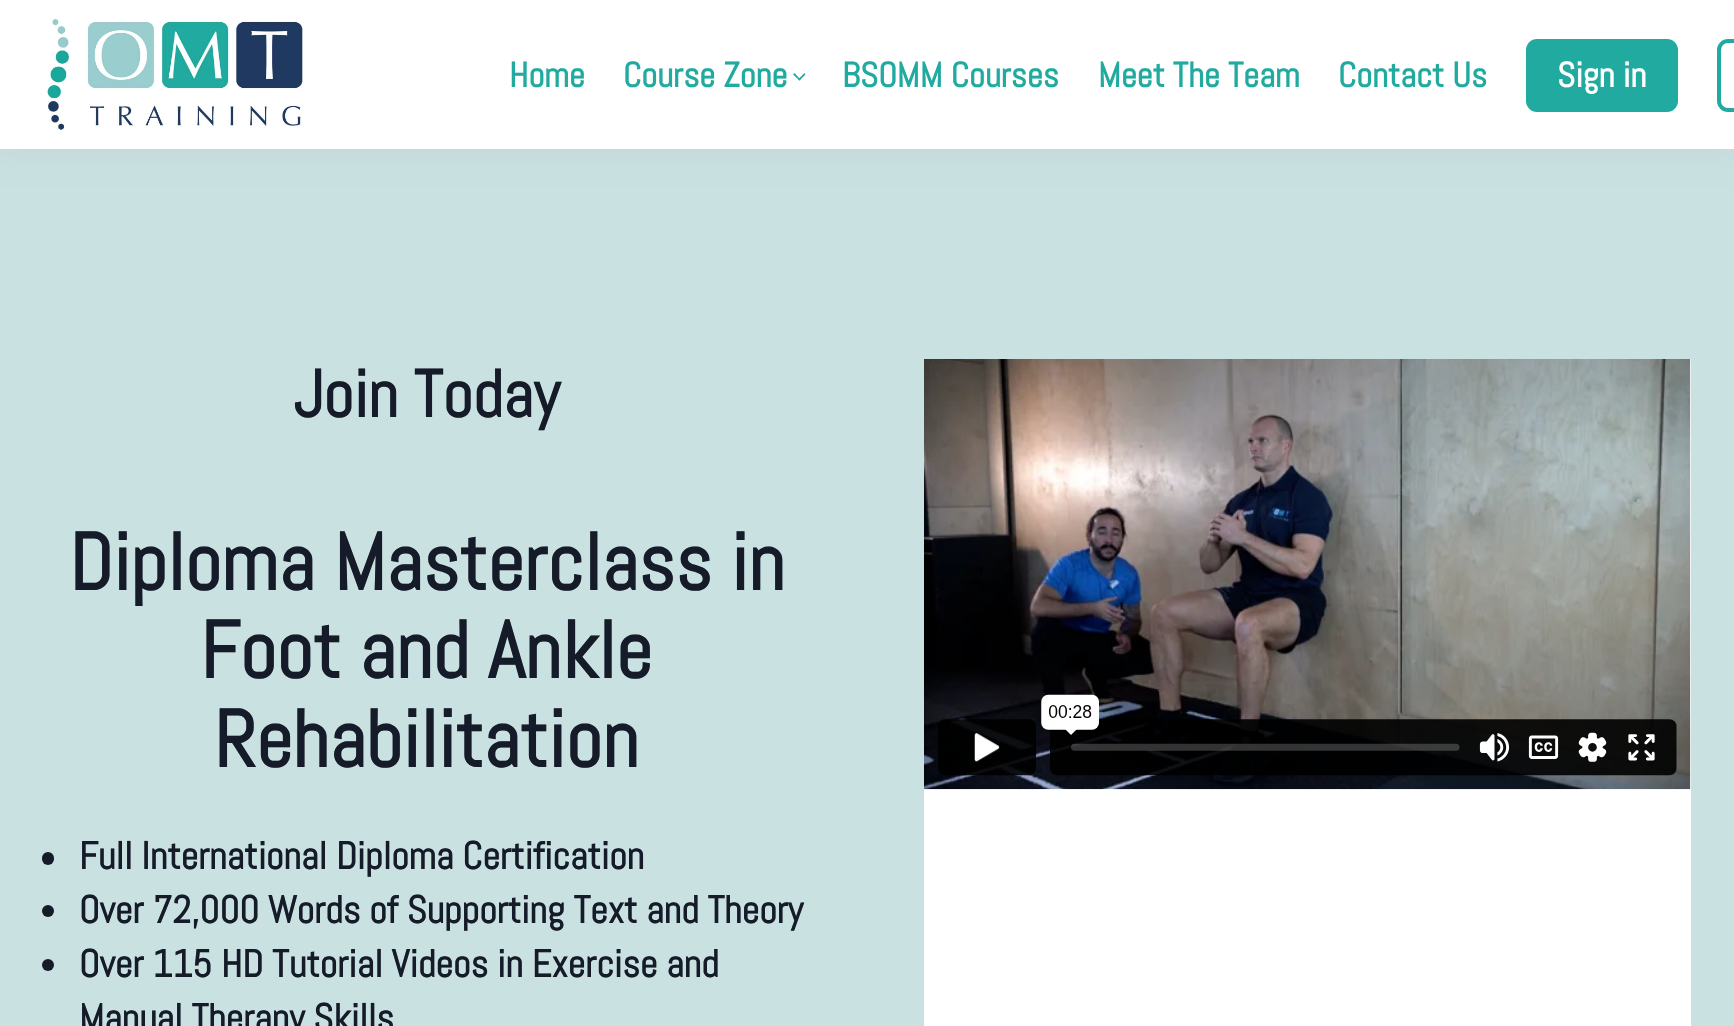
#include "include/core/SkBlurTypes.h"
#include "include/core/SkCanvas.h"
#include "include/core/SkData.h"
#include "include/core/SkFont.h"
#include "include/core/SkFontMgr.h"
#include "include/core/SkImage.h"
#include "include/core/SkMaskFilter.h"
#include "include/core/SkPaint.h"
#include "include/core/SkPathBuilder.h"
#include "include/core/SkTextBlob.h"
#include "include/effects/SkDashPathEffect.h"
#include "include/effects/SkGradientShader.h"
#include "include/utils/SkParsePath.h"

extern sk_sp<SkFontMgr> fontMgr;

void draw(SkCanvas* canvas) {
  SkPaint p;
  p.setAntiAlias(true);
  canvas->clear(SkColorSetRGB(202, 225, 225));
  p.setColor(SkColorSetARGB(13, 0, 0, 0));
  p.setMaskFilter(SkMaskFilter::MakeBlur(kNormal_SkBlurStyle, 13));
  canvas->drawRect(SkRect::MakeLTRB(0, 0, 1734, 149), p);
  p.setMaskFilter(nullptr);
  p.setColor(SK_ColorWHITE);
  canvas->drawRect(SkRect::MakeLTRB(0, 0, 1734, 149), p);
  canvas->drawImageRect(SkImages::DeferredFromEncodedData(SkData::MakeFromFileName("images/1.png")), SkRect::MakeLTRB(46, 18, 303, 131), SkSamplingOptions());
  p.setColor(SkColorSetRGB(33, 171, 160));
  canvas->drawPath(SkPathBuilder().moveTo(805.5f, 74.5f).lineTo(799.5f, 80.5f).lineTo(798, 79.5f).lineTo(804.5f, 73).close().detach(), p);
  canvas->drawPath(SkPathBuilder().moveTo(800.5f, 79.5f).lineTo(799.5f, 80.5f).lineTo(793, 74.5f).lineTo(794.5f, 73).close().detach(), p);
  canvas->drawRoundRect(SkRect::MakeLTRB(1526, 39, 1678, 112), 11, 11, p);
  p.setStyle(SkPaint::kStroke_Style);
  p.setStrokeWidth(4);
  canvas->drawRoundRect(SkRect::MakeLTRB(1719, 41, 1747, 110), 9, 9, p);
  p.setStyle(SkPaint::kFill_Style);
  p.setColor(SkColorSetRGB(21, 27, 41));
  canvas->drawRoundRect(SkRect::MakeLTRB(42, 852, 54, 865), 6, 6, p);
  canvas->drawCircle(48, 911, 6, p);
  canvas->drawCircle(48, 965, 6, p);
  p.setColor(SK_ColorWHITE);
  canvas->drawRect(SkRect::MakeLTRB(924, 359, 1691, 1026), p);
  canvas->drawImageRect(SkImages::DeferredFromEncodedData(SkData::MakeFromFileName("images/2.png")), SkRect::MakeLTRB(924, 359, 1691, 790), SkSamplingOptions());
  SkFont font1(fontMgr->matchFamilyStyle("Abel", SkFontStyle::Bold()), 35);
  font1.setSubpixel(true);
  p.setColor(SkColorSetRGB(33, 171, 160));
  canvas->drawString("Home", 509, 87, font1, p);
  canvas->drawString("Course Zone", 623, 87, font1, p);
  canvas->drawString("BSOMM Courses", 842, 87, font1, p);
  canvas->drawString("Meet The Team", 1098, 87, font1, p);
  canvas->drawString("Contact Us", 1338, 87, font1, p);
  p.setColor(SK_ColorWHITE);
  canvas->drawString("Sign in", 1557, 87, font1, p);
  SkFont font2(fontMgr->matchFamilyStyle("Abel", SkFontStyle::Bold()), 66.5f);
  font2.setSubpixel(true);
  p.setColor(SkColorSetRGB(21, 27, 41));
  canvas->drawString("Join Today", 293, 417, font2, p);
  SkFont font3(fontMgr->matchFamilyStyle("Abel", SkFontStyle::Bold()), 80.5f);
  font3.setSubpixel(true);
  canvas->drawString("Diploma Masterclass in", 69, 590, font3, p);
  canvas->drawString("Foot and Ankle", 200, 678, font3, p);
  canvas->drawString("Rehabilitation", 214, 767, font3, p);
  SkFont font4(fontMgr->matchFamilyStyle("Abel", SkFontStyle::Bold()), 38.5f);
  font4.setSubpixel(true);
  canvas->drawString("Full International Diploma Certification", 79, 869, font4, p);
  canvas->drawString("Over 72,000 Words of Supporting Text and Theory", 79, 923, font4, p);
  canvas->drawString("Over 115 HD Tutorial Videos in Exercise and", 79, 977, font4, p);
  canvas->drawString("Manual Therapy Skills", 79, 1031, font4, p);
}
